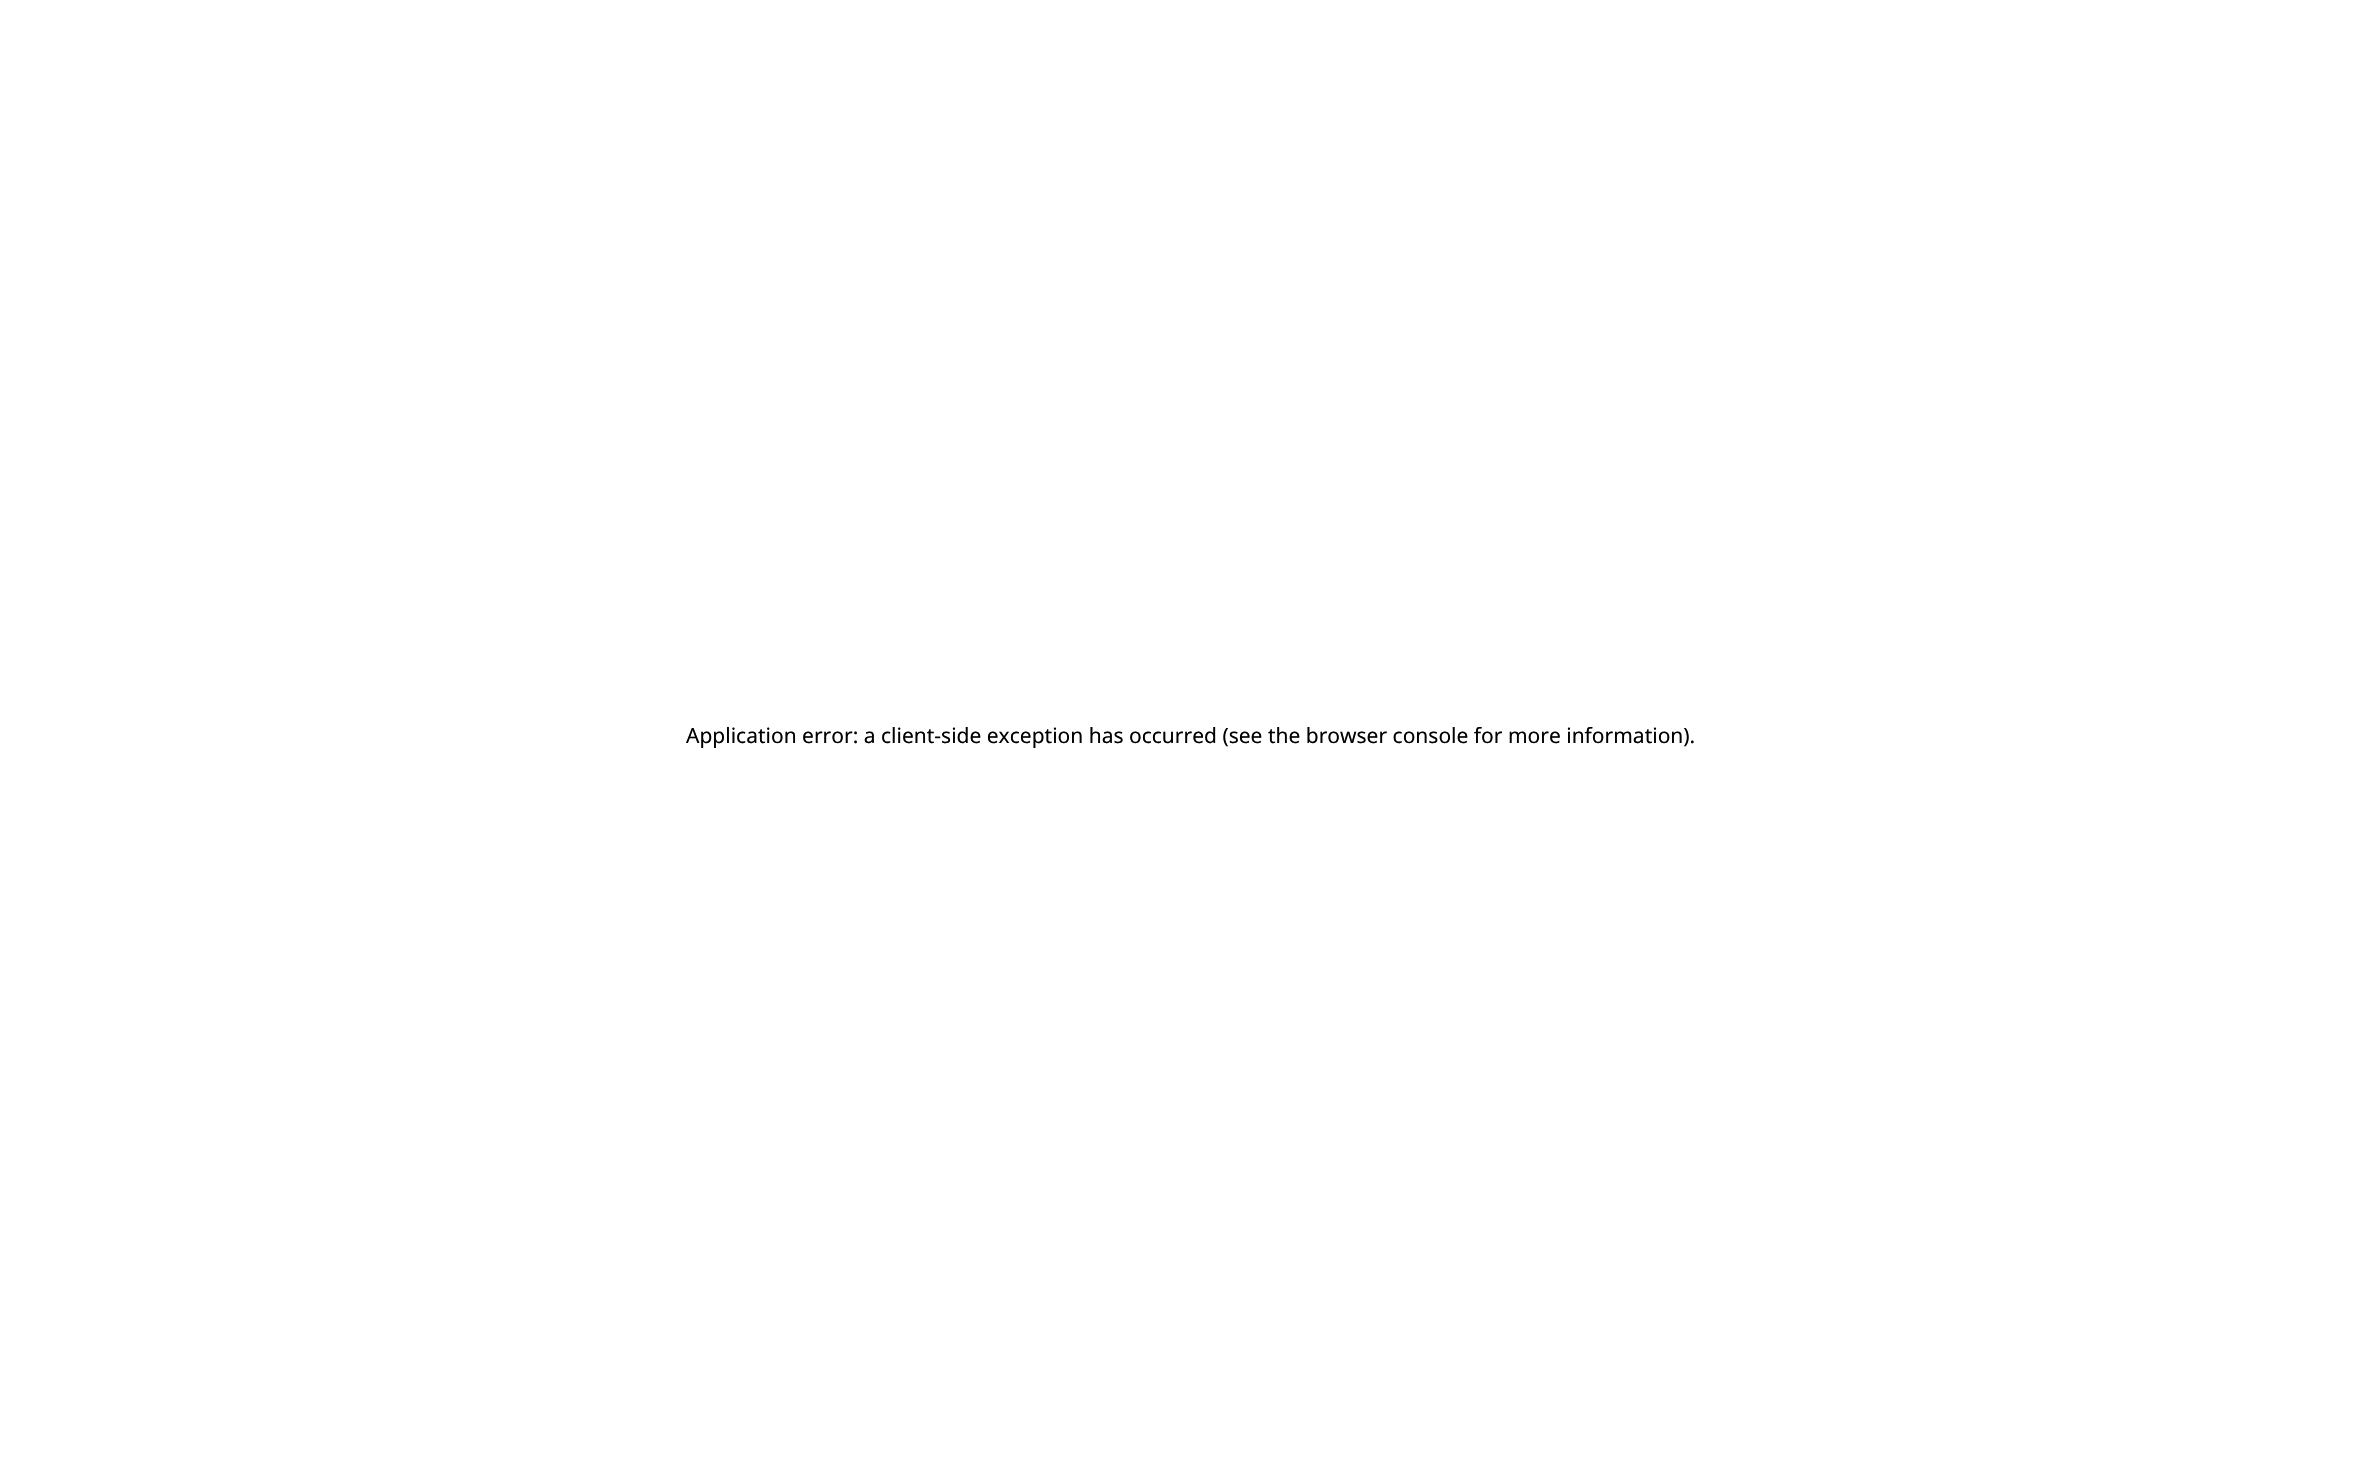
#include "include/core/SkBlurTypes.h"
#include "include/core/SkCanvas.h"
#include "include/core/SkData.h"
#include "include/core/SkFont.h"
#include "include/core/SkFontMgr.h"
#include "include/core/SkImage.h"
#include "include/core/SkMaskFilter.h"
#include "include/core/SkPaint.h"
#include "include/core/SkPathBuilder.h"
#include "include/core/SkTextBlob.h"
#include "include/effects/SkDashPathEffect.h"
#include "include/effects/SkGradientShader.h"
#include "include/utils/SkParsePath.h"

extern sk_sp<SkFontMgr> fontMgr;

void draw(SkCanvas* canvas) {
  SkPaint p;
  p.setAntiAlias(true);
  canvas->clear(SK_ColorWHITE);
  SkFont font1(fontMgr->matchFamilyStyle("Noto Sans", SkFontStyle::Normal()), 21);
  font1.setSubpixel(true);
  p.setColor(SK_ColorBLACK);
  canvas->drawString("Application error: a client-side exception has occurred (see the browser console for more information).", 686, 743, font1, p);
}
